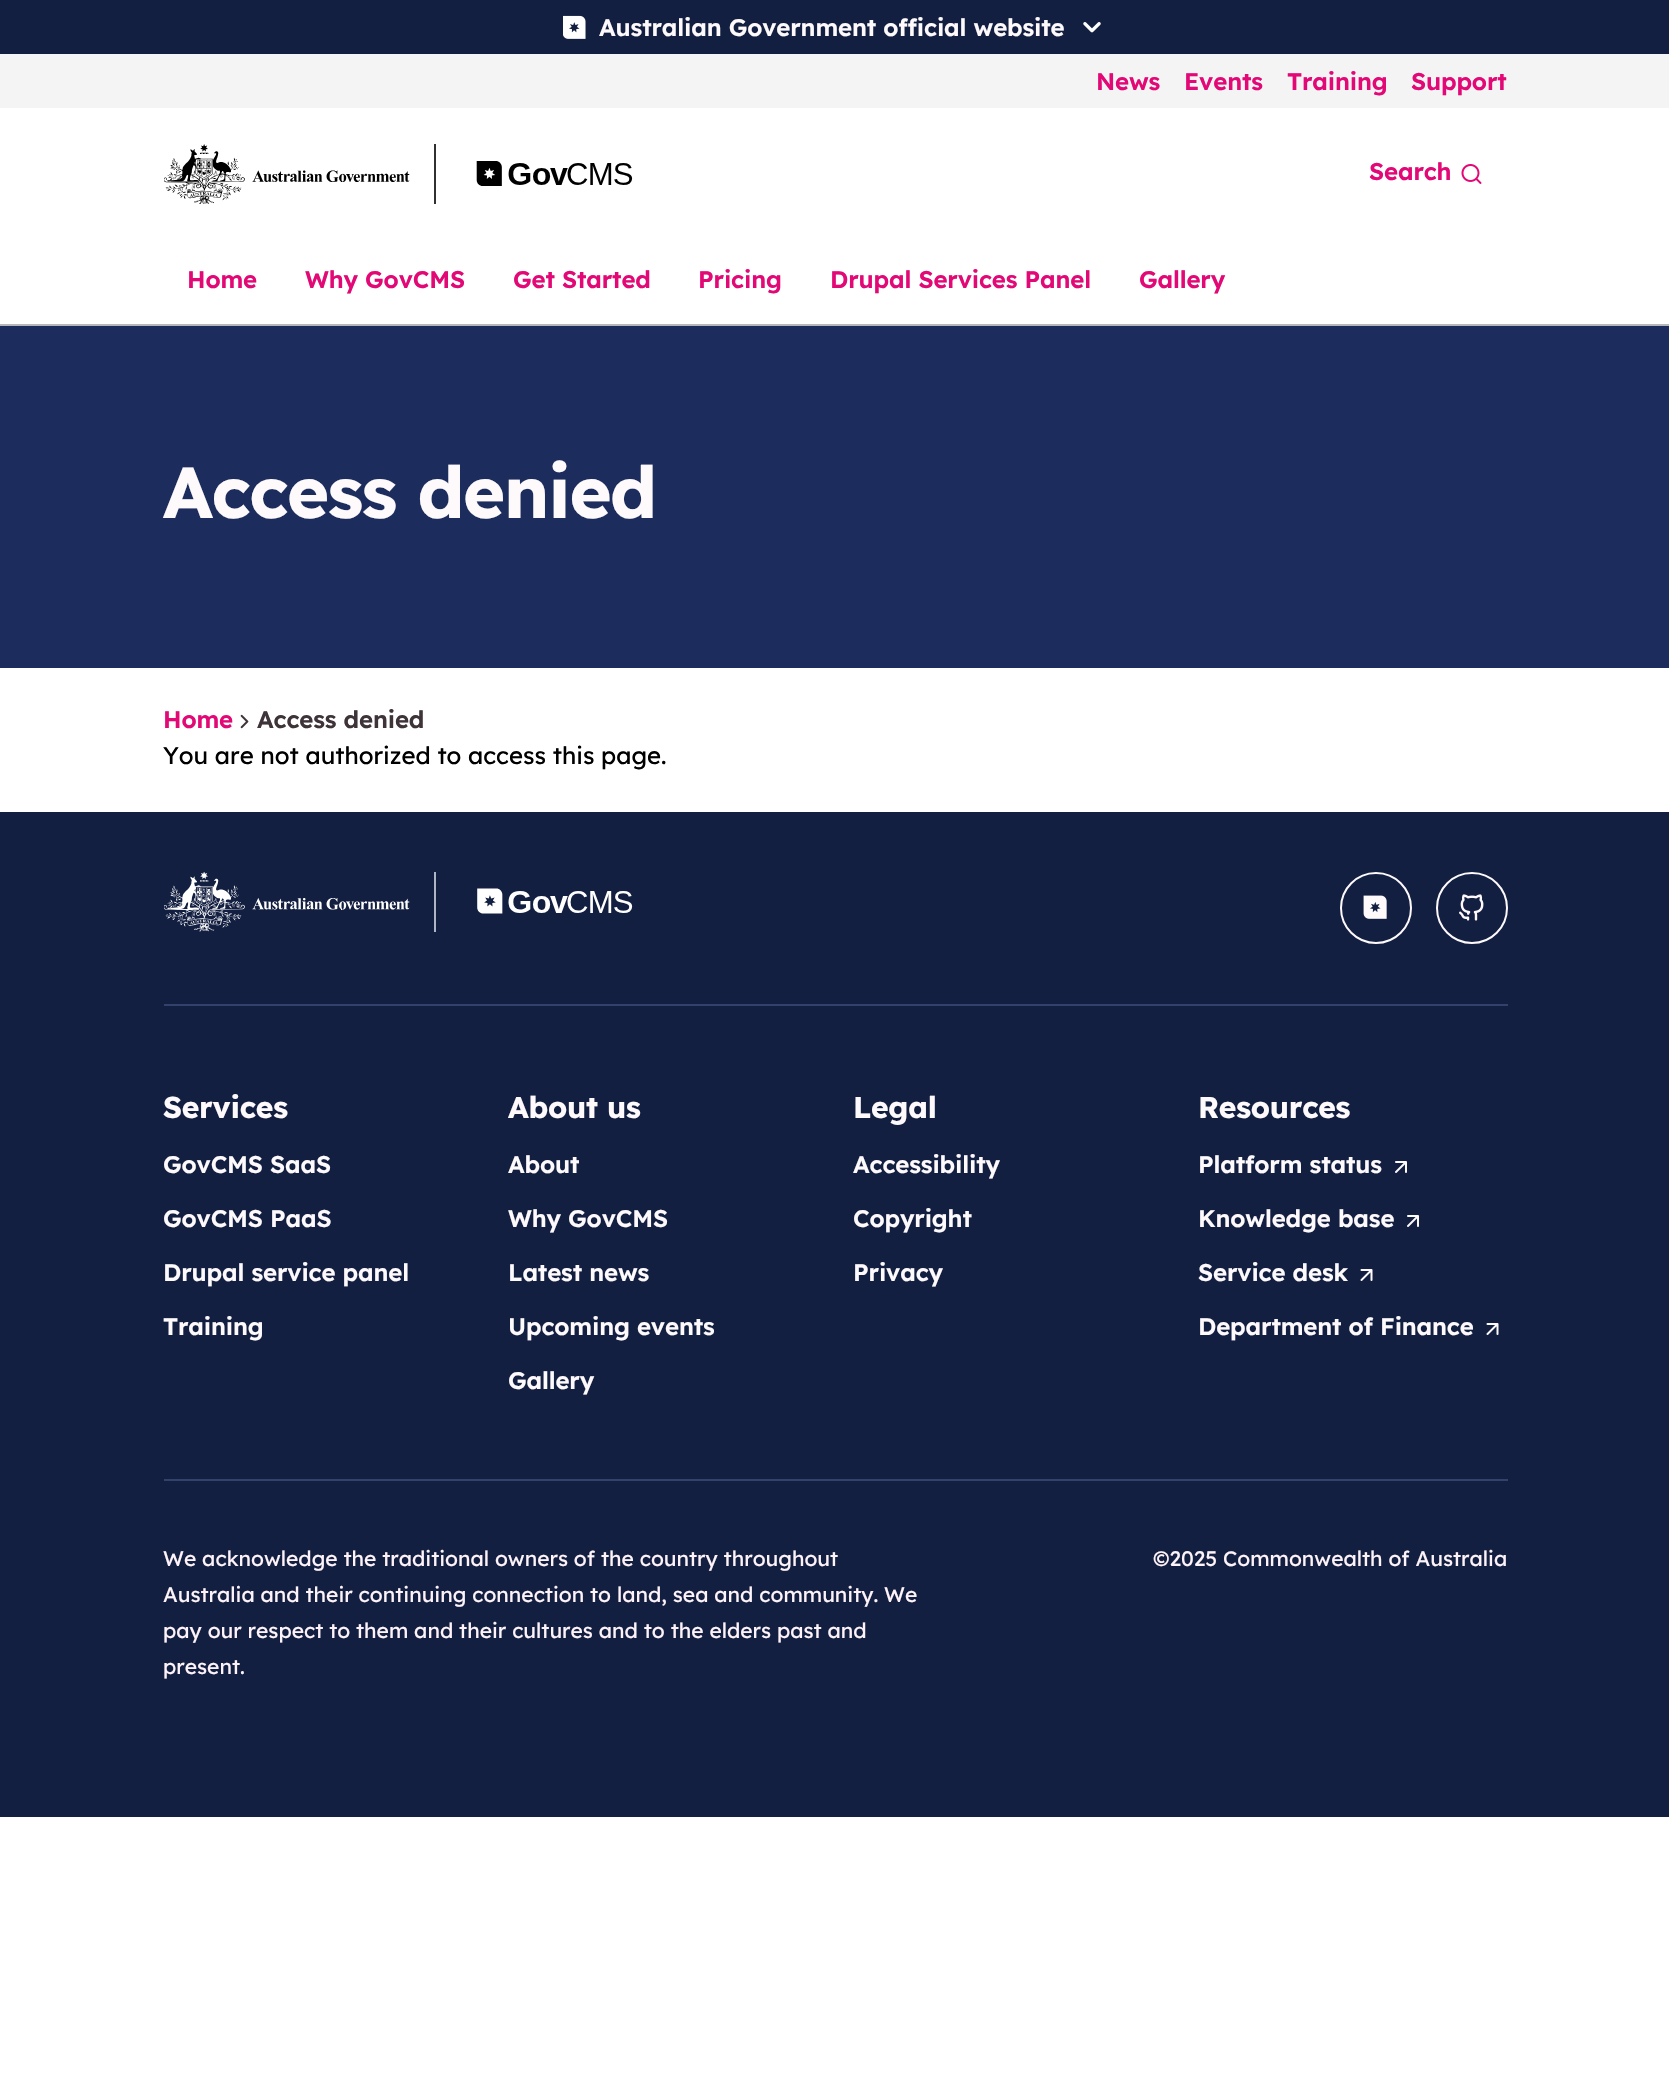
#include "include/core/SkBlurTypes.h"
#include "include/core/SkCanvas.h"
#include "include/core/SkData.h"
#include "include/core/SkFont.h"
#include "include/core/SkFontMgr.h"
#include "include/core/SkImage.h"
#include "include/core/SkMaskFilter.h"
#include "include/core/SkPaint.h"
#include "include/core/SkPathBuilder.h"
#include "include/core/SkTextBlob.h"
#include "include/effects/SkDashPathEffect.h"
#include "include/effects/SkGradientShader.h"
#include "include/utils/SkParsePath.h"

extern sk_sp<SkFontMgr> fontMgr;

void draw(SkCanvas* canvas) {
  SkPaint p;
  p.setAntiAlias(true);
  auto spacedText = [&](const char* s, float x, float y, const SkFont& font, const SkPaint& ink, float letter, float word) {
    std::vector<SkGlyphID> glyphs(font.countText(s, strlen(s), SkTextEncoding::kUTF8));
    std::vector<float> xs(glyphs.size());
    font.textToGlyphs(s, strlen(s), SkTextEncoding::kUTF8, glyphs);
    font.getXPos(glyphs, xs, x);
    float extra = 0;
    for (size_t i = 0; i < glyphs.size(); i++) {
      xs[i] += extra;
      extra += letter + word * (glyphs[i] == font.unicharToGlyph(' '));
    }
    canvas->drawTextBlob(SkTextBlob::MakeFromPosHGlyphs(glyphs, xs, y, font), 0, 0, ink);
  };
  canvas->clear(SK_ColorWHITE);
  p.setColor(SkColorSetRGB(19, 31, 65));
  canvas->drawRect(SkRect::MakeLTRB(0, 0, 1669, 54), p);
  canvas->drawImageRect(SkImages::DeferredFromEncodedData(SkData::MakeFromFileName("images/1.png")), SkRect::MakeLTRB(563, 15, 586, 39), SkSamplingOptions());
  canvas->drawImageRect(SkImages::DeferredFromEncodedData(SkData::MakeFromFileName("images/2.png")), SkRect::MakeLTRB(1083, 22, 1101, 33), SkSamplingOptions());
  p.setColor(SkColorSetRGB(183, 183, 184));
  canvas->drawRect(SkRect::MakeLTRB(0, 324, 1669, 326), p);
  p.setColor(SkColorSetRGB(244, 244, 245));
  canvas->drawRect(SkRect::MakeLTRB(0, 54, 1669, 108), p);
  canvas->drawImageRect(SkImages::DeferredFromEncodedData(SkData::MakeFromFileName("images/3.png")), SkRect::MakeLTRB(164, 144, 410, 204), SkSamplingOptions());
  p.setColor(SkColorSetRGB(49, 49, 49));
  canvas->drawRect(SkRect::MakeLTRB(434, 144, 436, 204), p);
  canvas->drawImageRect(SkImages::DeferredFromEncodedData(SkData::MakeFromFileName("images/4.png")), SkRect::MakeLTRB(476, 161, 633, 186), SkSamplingOptions());
  canvas->drawImageRect(SkImages::DeferredFromEncodedData(SkData::MakeFromFileName("images/5.png")), SkRect::MakeLTRB(1461, 164, 1482, 184), SkSamplingOptions());
  p.setColor(SkColorSetRGB(27, 44, 93));
  canvas->drawRect(SkRect::MakeLTRB(0, 326, 1669, 668), p);
  canvas->drawImageRect(SkImages::DeferredFromEncodedData(SkData::MakeFromFileName("images/6.png")), SkRect::MakeLTRB(240, 714, 249, 729), SkSamplingOptions());
  p.setColor(SkColorSetRGB(19, 31, 65));
  canvas->drawRect(SkRect::MakeLTRB(0, 812, 1669, 1817), p);
  p.setColor(SkColorSetRGB(51, 65, 109));
  canvas->drawRect(SkRect::MakeLTRB(164, 1004, 1508, 1006), p);
  canvas->drawImageRect(SkImages::DeferredFromEncodedData(SkData::MakeFromFileName("images/7.png")), SkRect::MakeLTRB(164, 872, 410, 932), SkSamplingOptions());
  p.setColor(SkColorSetRGB(174, 181, 198));
  canvas->drawRect(SkRect::MakeLTRB(434, 872, 436, 932), p);
  canvas->drawImageRect(SkImages::DeferredFromEncodedData(SkData::MakeFromFileName("images/8.png")), SkRect::MakeLTRB(477, 888, 633, 914), SkSamplingOptions());
  p.setStyle(SkPaint::kStroke_Style);
  p.setStrokeWidth(2);
  p.setColor(SkColorSetRGB(254, 250, 252));
  canvas->drawCircle(1376, 908, 35, p);
  canvas->drawImageRect(SkImages::DeferredFromEncodedData(SkData::MakeFromFileName("images/9.png")), SkRect::MakeLTRB(1363, 895, 1387, 919), SkSamplingOptions());
  canvas->drawCircle(1472, 908, 35, p);
  canvas->drawImageRect(SkImages::DeferredFromEncodedData(SkData::MakeFromFileName("images/10.png")), SkRect::MakeLTRB(1459, 894, 1484, 921), SkSamplingOptions());
  p.setStyle(SkPaint::kFill_Style);
  p.setColor(SkColorSetRGB(51, 65, 109));
  canvas->drawRect(SkRect::MakeLTRB(164, 1479, 1508, 1481), p);
  canvas->drawImageRect(SkImages::DeferredFromEncodedData(SkData::MakeFromFileName("images/11.png")), SkRect::MakeLTRB(1395, 1161, 1407, 1173), SkSamplingOptions());
  canvas->drawImageRect(SkImages::DeferredFromEncodedData(SkData::MakeFromFileName("images/11.png")), SkRect::MakeLTRB(1407, 1215, 1419, 1227), SkSamplingOptions());
  canvas->drawImageRect(SkImages::DeferredFromEncodedData(SkData::MakeFromFileName("images/12.png")), SkRect::MakeLTRB(1360, 1269, 1373, 1281), SkSamplingOptions());
  canvas->drawImageRect(SkImages::DeferredFromEncodedData(SkData::MakeFromFileName("images/12.png")), SkRect::MakeLTRB(1486, 1323, 1499, 1335), SkSamplingOptions());
  SkFont font1(fontMgr->matchFamilyStyle("Lexend", SkFontStyle(600, SkFontStyle::kNormal_Width, SkFontStyle::kUpright_Slant)), 24);
  font1.setSubpixel(true);
  p.setColor(SkColorSetRGB(254, 250, 252));
  spacedText("Australian Government official website", 599, 36, font1, p, -0.15f, 0);
  p.setColor(SkColorSetRGB(226, 8, 117));
  spacedText("News", 1096, 90, font1, p, -0.15f, 0);
  spacedText("Events", 1184, 90, font1, p, -0.15f, 0);
  spacedText("Training", 1287, 90, font1, p, -0.15f, 0);
  spacedText("Support", 1411, 90, font1, p, -0.15f, 0);
  spacedText("Search", 1369, 180, font1, p, -0.15f, 0);
  spacedText("Home", 187, 288, font1, p, -0.15f, 0);
  spacedText("Why GovCMS", 305, 288, font1, p, -0.15f, 0);
  spacedText("Get Started", 513, 288, font1, p, -0.15f, 0);
  spacedText("Pricing", 698, 288, font1, p, -0.15f, 0);
  spacedText("Drupal Services Panel", 830, 288, font1, p, -0.15f, 0);
  spacedText("Gallery", 1139, 288, font1, p, -0.15f, 0);
  SkFont font2(fontMgr->matchFamilyStyle("Lexend", SkFontStyle::Bold()), 72);
  font2.setSubpixel(true);
  p.setColor(SkColorSetRGB(254, 250, 252));
  spacedText("Access denied", 163, 518, font2, p, -1.5f, 0);
  p.setColor(SkColorSetRGB(226, 8, 117));
  spacedText("Home", 163, 728, font1, p, -0.15f, 0);
  p.setColor(SkColorSetRGB(61, 51, 56));
  spacedText("Access denied", 257, 728, font1, p, -0.15f, 0);
  SkFont font3(fontMgr->matchFamilyStyle("Lexend", SkFontStyle::Normal()), 24);
  font3.setSubpixel(true);
  p.setColor(SK_ColorBLACK);
  canvas->drawString("You are not authorized to access this page.", 163, 764, font3, p);
  SkFont font4(fontMgr->matchFamilyStyle("Lexend", SkFontStyle::Bold()), 30);
  font4.setSubpixel(true);
  p.setColor(SkColorSetRGB(254, 250, 252));
  spacedText("Services", 163, 1118, font4, p, -0.25f, 0);
  spacedText("GovCMS SaaS", 163, 1173, font1, p, -0.15f, 0);
  spacedText("GovCMS PaaS", 163, 1227, font1, p, -0.15f, 0);
  spacedText("Drupal service panel", 163, 1281, font1, p, -0.15f, 0);
  spacedText("Training", 163, 1335, font1, p, -0.15f, 0);
  spacedText("About us", 508, 1118, font4, p, -0.25f, 0);
  spacedText("About", 508, 1173, font1, p, -0.15f, 0);
  spacedText("Why GovCMS", 508, 1227, font1, p, -0.15f, 0);
  spacedText("Latest news", 508, 1281, font1, p, -0.15f, 0);
  spacedText("Upcoming events", 508, 1335, font1, p, -0.15f, 0);
  spacedText("Gallery", 508, 1389, font1, p, -0.15f, 0);
  spacedText("Legal", 853, 1118, font4, p, -0.25f, 0);
  spacedText("Accessibility", 853, 1173, font1, p, -0.15f, 0);
  spacedText("Copyright", 853, 1227, font1, p, -0.15f, 0);
  spacedText("Privacy", 853, 1281, font1, p, -0.15f, 0);
  spacedText("Resources", 1198, 1118, font4, p, -0.25f, 0);
  spacedText("Platform status", 1198, 1173, font1, p, -0.15f, 0);
  spacedText("Knowledge base", 1198, 1227, font1, p, -0.15f, 0);
  spacedText("Service desk", 1198, 1281, font1, p, -0.15f, 0);
  spacedText("Department of Finance", 1198, 1335, font1, p, -0.15f, 0);
  SkFont font5(fontMgr->matchFamilyStyle("Lexend", SkFontStyle::Normal()), 21);
  font5.setSubpixel(true);
  p.setColor(SkColorSetRGB(254, 243, 248));
  canvas->drawString("We acknowledge the traditional owners of the country throughout", 163, 1566, font5, p);
  canvas->drawString("Australia and their continuing connection to land, sea and community. We", 163, 1602, font5, p);
  canvas->drawString("pay our respect to them and their cultures and to the elders past and", 163, 1638, font5, p);
  canvas->drawString("present.", 163, 1674, font5, p);
  canvas->drawString("©2025 Commonwealth of Australia", 1153, 1566, font5, p);
}
